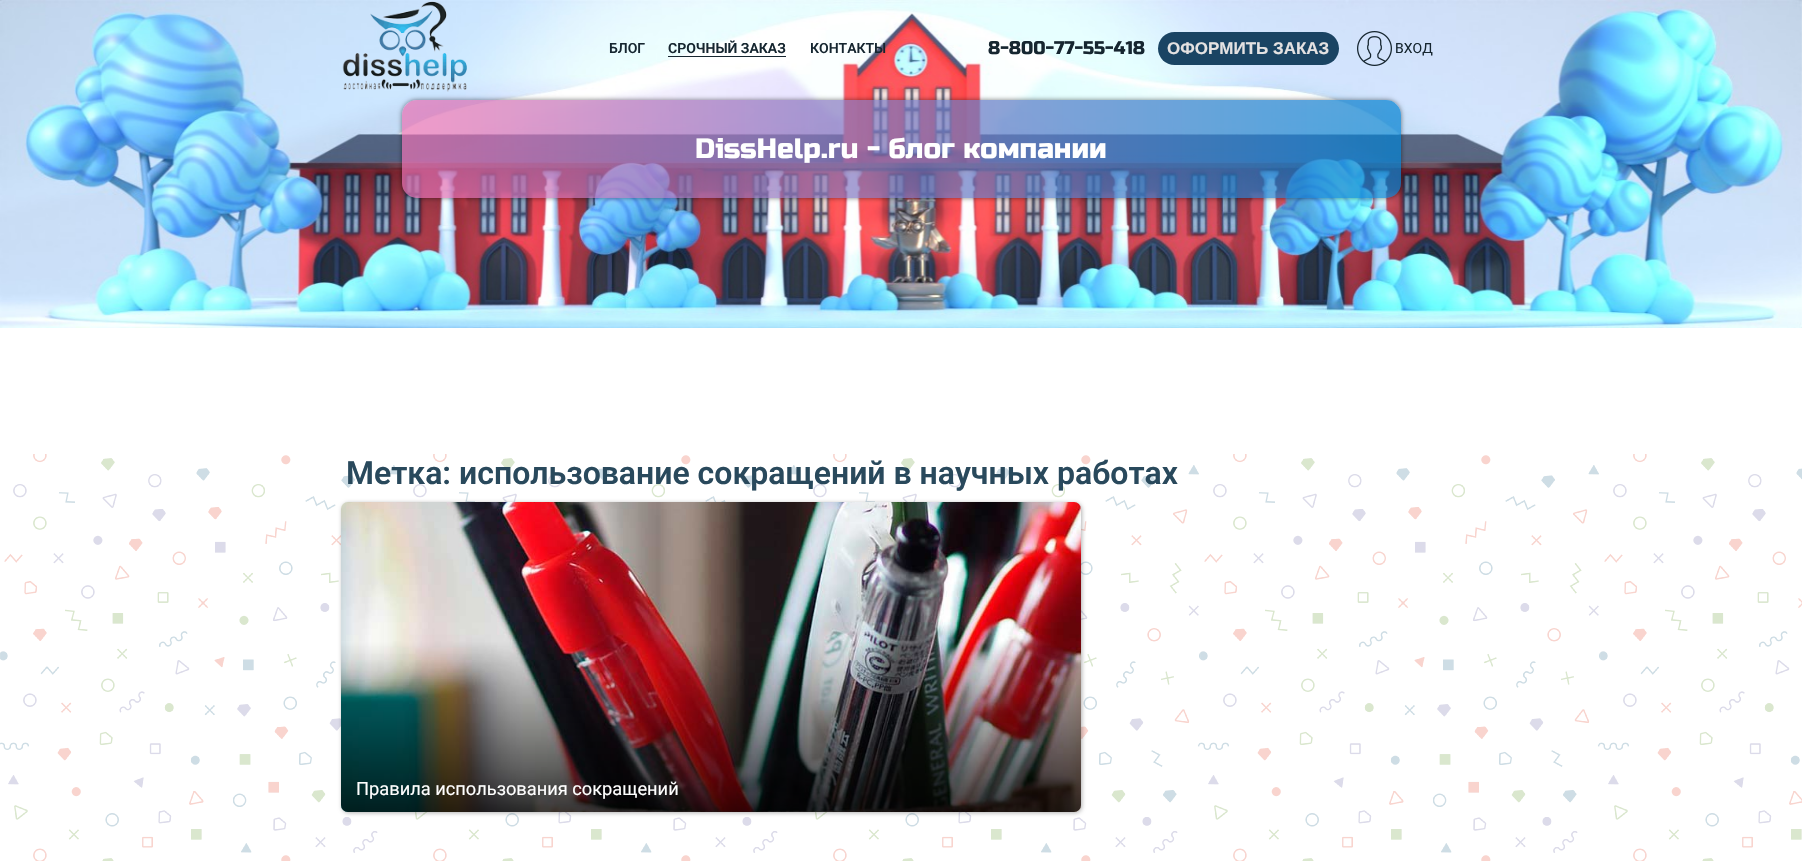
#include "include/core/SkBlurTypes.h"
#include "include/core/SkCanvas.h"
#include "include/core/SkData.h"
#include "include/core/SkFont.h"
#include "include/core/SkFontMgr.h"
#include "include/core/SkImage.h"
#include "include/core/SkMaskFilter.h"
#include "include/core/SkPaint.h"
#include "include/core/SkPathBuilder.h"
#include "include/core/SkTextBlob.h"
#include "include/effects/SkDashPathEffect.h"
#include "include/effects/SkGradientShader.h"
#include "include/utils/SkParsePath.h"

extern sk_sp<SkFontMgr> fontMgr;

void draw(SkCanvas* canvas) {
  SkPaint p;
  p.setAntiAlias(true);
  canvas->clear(SK_ColorWHITE);
  canvas->drawImageRect(SkImages::DeferredFromEncodedData(SkData::MakeFromFileName("images/1.png")), SkRect::MakeLTRB(0, 0, 1802, 328), SkSamplingOptions());
  canvas->drawImageRect(SkImages::DeferredFromEncodedData(SkData::MakeFromFileName("images/2.png")), SkRect::MakeLTRB(342, 1, 467, 92), SkSamplingOptions());
  p.setColor(SkColorSetRGB(22, 38, 48));
  canvas->drawRect(SkRect::MakeLTRB(668, 56, 786, 57), p);
  p.setColor(SkColorSetRGB(26, 68, 99));
  canvas->drawRoundRect(SkRect::MakeLTRB(1158, 32, 1339, 65), 16.5f, 16.5f, p);
  canvas->drawImageRect(SkImages::DeferredFromEncodedData(SkData::MakeFromFileName("images/3.png")), SkRect::MakeLTRB(1357, 31, 1392, 66), SkSamplingOptions());
  canvas->save();
  canvas->clipPath(SkPathBuilder(SkPathFillType::kEvenOdd).moveTo(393, 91).lineTo(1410, 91).lineTo(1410, 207).lineTo(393, 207).close().moveTo(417, 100).lineTo(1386, 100).cubicTo(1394.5f, 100, 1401, 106.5f, 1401, 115).lineTo(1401, 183).cubicTo(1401, 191.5f, 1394.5f, 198, 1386, 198).lineTo(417, 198).cubicTo(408.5f, 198, 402, 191.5f, 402, 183).lineTo(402, 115).cubicTo(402, 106.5f, 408.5f, 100, 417, 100).close().detach(), true);
  p.setColor(SkColorSetARGB(128, 0, 0, 0));
  p.setMaskFilter(SkMaskFilter::MakeBlur(kNormal_SkBlurStyle, 2.5f));
  canvas->drawRoundRect(SkRect::MakeLTRB(402, 100, 1401, 198), 15, 15, p);
  p.setMaskFilter(nullptr);
  canvas->restore();
  {
    const SkColor colors[] = {SkColorSetARGB(179, 234, 112, 178), SkColorSetARGB(179, 0, 128, 209)};
    const float stops[] = {0, 1};
    const SkPoint ends[] = {{402, 149}, {1401, 149}};
    p.setShader(SkGradientShader::MakeLinear(ends, colors, stops, 2, SkTileMode::kClamp));
    p.setAlpha(255);
  }
  canvas->drawRoundRect(SkRect::MakeLTRB(402, 100, 1401, 198), 15, 15, p);
  canvas->drawImageRect(SkImages::DeferredFromEncodedData(SkData::MakeFromFileName("images/4.png")), SkRect::MakeLTRB(0, 454, 1802, 861), SkSamplingOptions());
  p.setShader(nullptr);
  p.setColor(SkColorSetARGB(77, 0, 0, 0));
  p.setMaskFilter(SkMaskFilter::MakeBlur(kNormal_SkBlurStyle, 2));
  canvas->drawRoundRect(SkRect::MakeLTRB(342, 503, 1082, 813), 7, 7, p);
  p.setMaskFilter(nullptr);
  canvas->drawImageRect(SkImages::DeferredFromEncodedData(SkData::MakeFromFileName("images/5.png")), SkRect::MakeLTRB(341, 502, 1081, 812), SkSamplingOptions());
  {
    const SkColor colors[] = {SkColorSetARGB(0, 0, 0, 0), SkColorSetARGB(0, 0, 0, 0), SkColorSetARGB(191, 0, 0, 0)};
    const float stops[] = {0, 0.45f, 1};
    const SkPoint ends[] = {{711, 502}, {711, 812}};
    p.setShader(SkGradientShader::MakeLinear(ends, colors, stops, 3, SkTileMode::kClamp));
    p.setAlpha(255);
  }
  canvas->drawRoundRect(SkRect::MakeLTRB(341, 502, 1081, 812), 7, 7, p);
  SkFont font1(fontMgr->matchFamilyStyle("Roboto", SkFontStyle(500, SkFontStyle::kNormal_Width, SkFontStyle::kUpright_Slant)), 14);
  font1.setSubpixel(true);
  p.setShader(nullptr);
  p.setColor(SkColorSetRGB(22, 38, 48));
  canvas->drawString("БЛОГ", 609, 53, font1, p);
  SkFont font2(fontMgr->matchFamilyStyle("Roboto", SkFontStyle(600, SkFontStyle::kNormal_Width, SkFontStyle::kUpright_Slant)), 14);
  font2.setSubpixel(true);
  canvas->drawString("СРОЧНЫЙ ЗАКАЗ", 668, 53, font2, p);
  canvas->drawString("КОНТАКТЫ", 810, 53, font1, p);
  SkFont font3(fontMgr->matchFamilyStyle("Russo One", SkFontStyle::Normal()), 18.25f);
  font3.setSubpixel(true);
  canvas->drawString("8-800-77-55-418", 988, 54, font3, p);
  SkFont font4(fontMgr->matchFamilyStyle("Liberation Sans", SkFontStyle::Bold()), 17);
  font4.setSubpixel(true);
  p.setColor(SkColorSetRGB(228, 226, 226));
  canvas->drawString("ОФОРМИТЬ ЗАКАЗ", 1167, 54, font4, p);
  SkFont font5(fontMgr->matchFamilyStyle("Roboto", SkFontStyle::Normal()), 14);
  font5.setSubpixel(true);
  p.setColor(SkColorSetRGB(22, 38, 48));
  canvas->drawString("ВХОД", 1395, 53, font5, p);
  SkFont font6(fontMgr->matchFamilyStyle("Russo One", SkFontStyle::Normal()), 28);
  font6.setSubpixel(true);
  p.setColor(SK_ColorWHITE);
  canvas->drawString("DissHelp.ru - блог компании", 695, 158, font6, p);
  SkFont font7(fontMgr->matchFamilyStyle("Roboto", SkFontStyle(600, SkFontStyle::kNormal_Width, SkFontStyle::kUpright_Slant)), 32);
  font7.setSubpixel(true);
  p.setColor(SkColorSetRGB(41, 73, 92));
  canvas->drawString("Метка: использование сокращений в научных работах", 346, 484, font7, p);
  SkFont font8(fontMgr->matchFamilyStyle("Roboto", SkFontStyle::Normal()), 18.25f);
  font8.setSubpixel(true);
  p.setColor(SK_ColorWHITE);
  canvas->drawString("Правила использования сокращений", 356, 795, font8, p);
}
